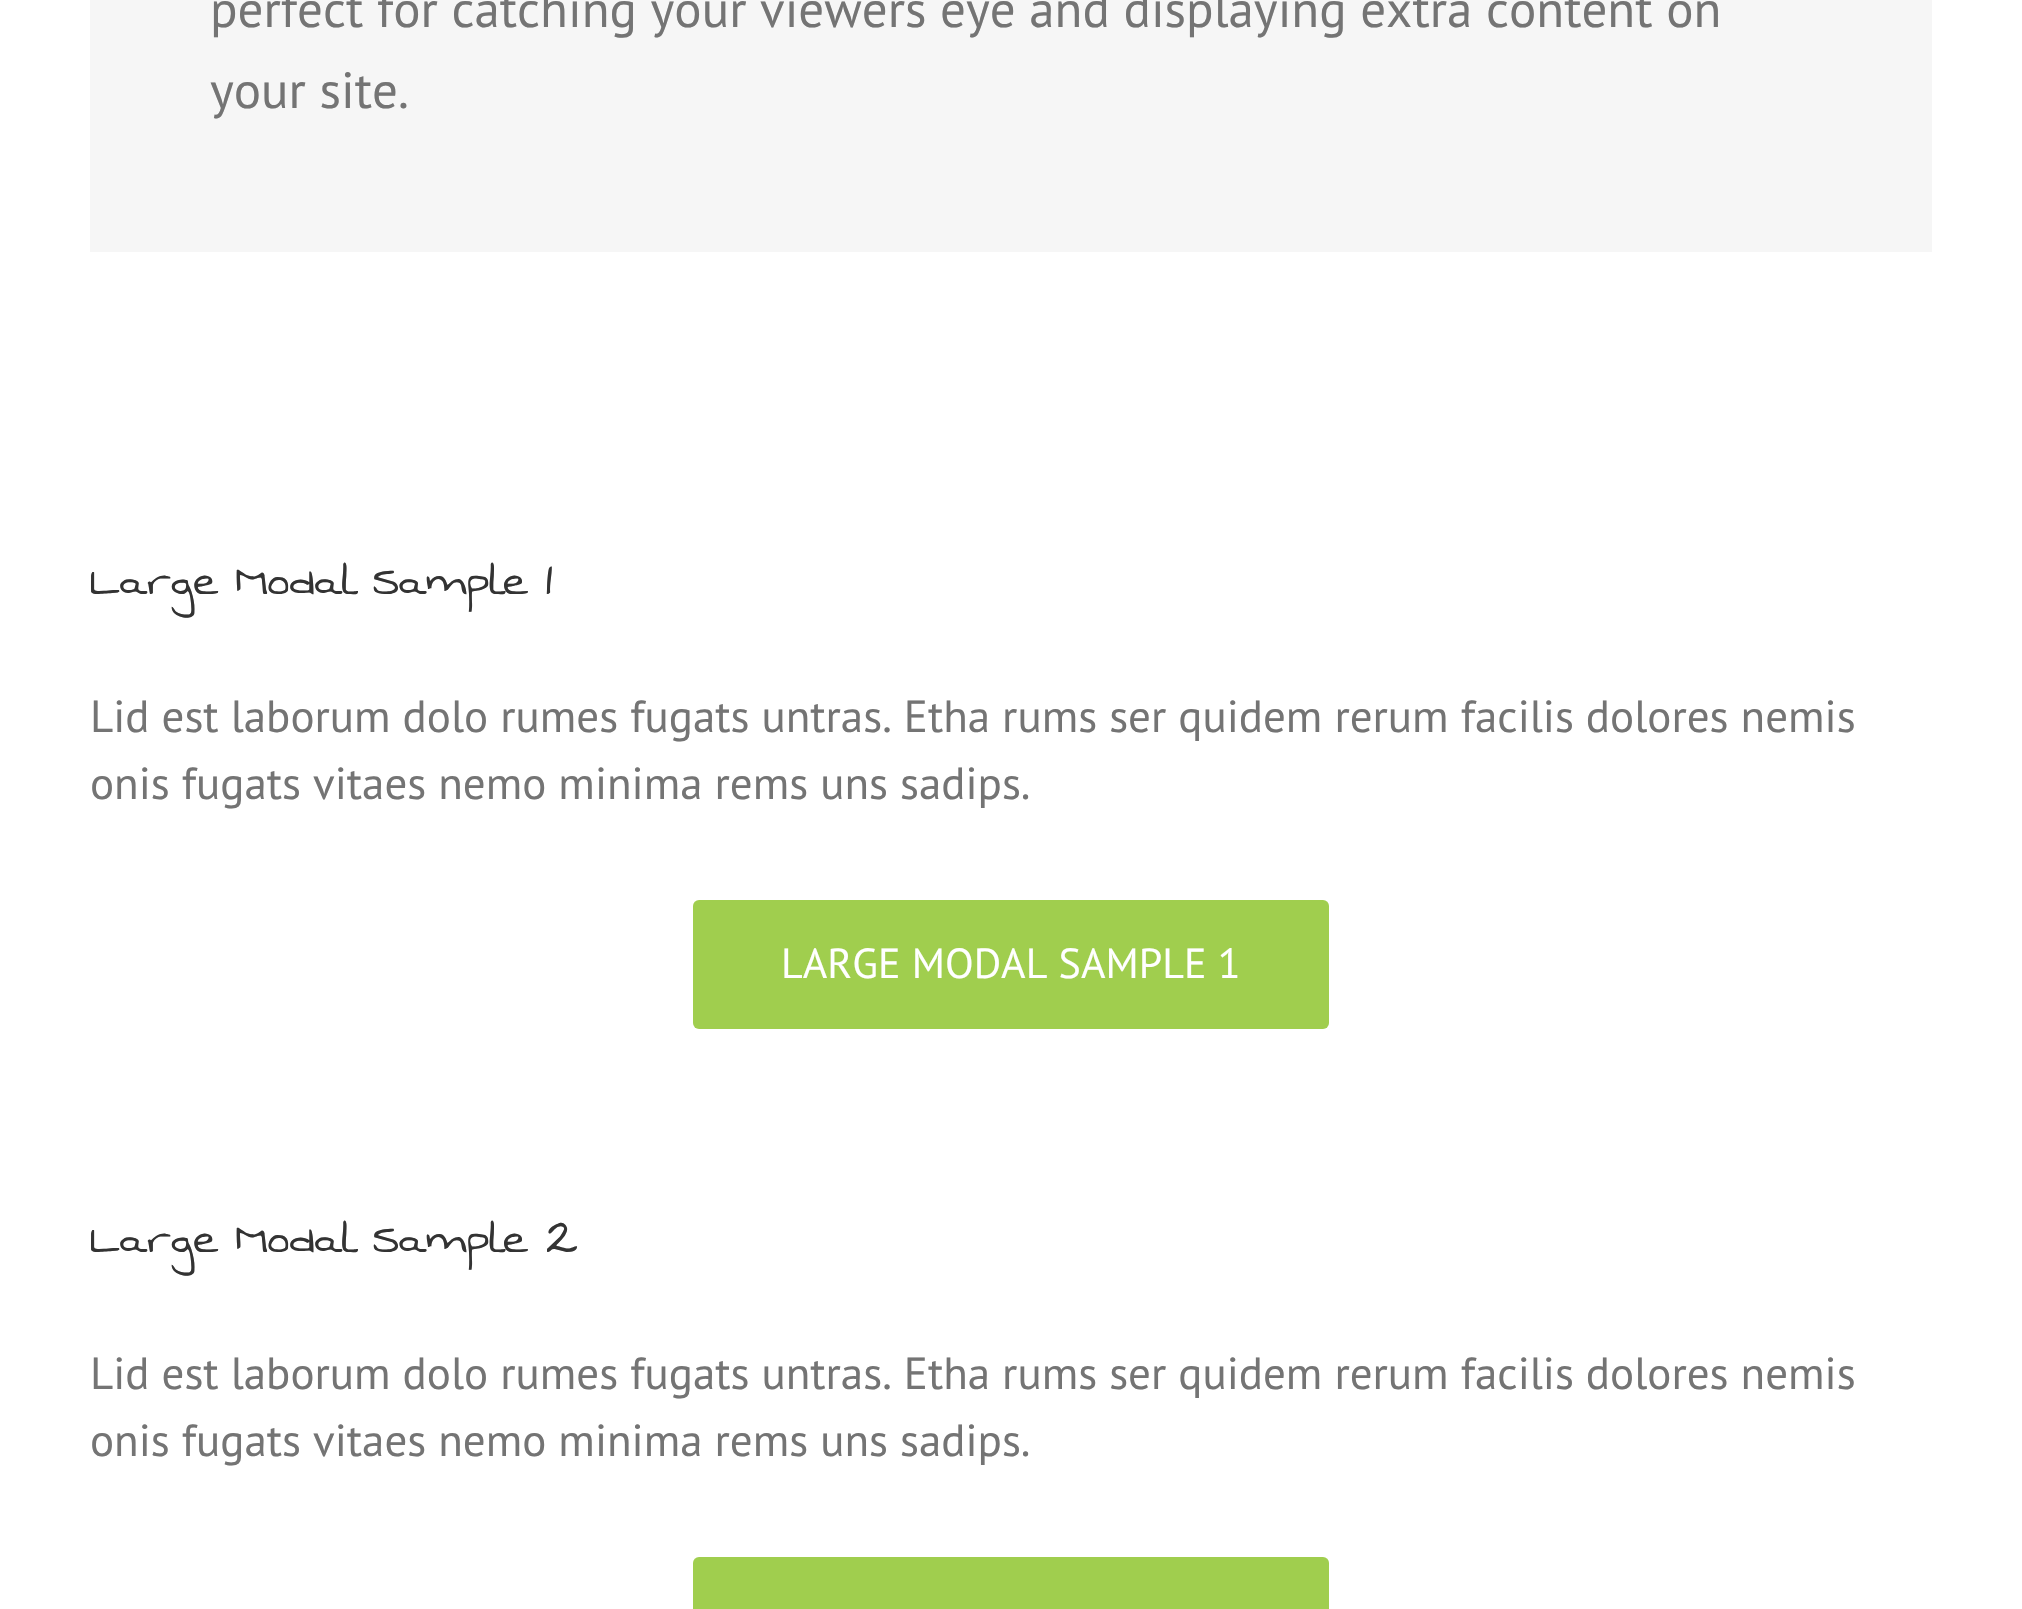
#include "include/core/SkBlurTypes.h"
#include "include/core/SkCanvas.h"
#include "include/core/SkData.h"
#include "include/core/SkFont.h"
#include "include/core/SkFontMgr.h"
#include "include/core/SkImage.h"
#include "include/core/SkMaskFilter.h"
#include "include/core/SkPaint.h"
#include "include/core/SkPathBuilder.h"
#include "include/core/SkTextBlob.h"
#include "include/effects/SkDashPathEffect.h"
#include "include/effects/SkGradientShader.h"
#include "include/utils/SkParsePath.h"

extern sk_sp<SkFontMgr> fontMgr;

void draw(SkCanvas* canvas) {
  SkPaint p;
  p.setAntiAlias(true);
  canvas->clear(SK_ColorWHITE);
  p.setColor(SkColorSetRGB(246, 246, 246));
  canvas->drawRect(SkRect::MakeLTRB(90, 0, 1932, 252), p);
  p.setColor(SkColorSetRGB(160, 206, 78));
  canvas->drawRoundRect(SkRect::MakeLTRB(693, 900, 1329, 1029), 6, 6, p);
  canvas->drawRoundRect(SkRect::MakeLTRB(693, 1557, 1329, 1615), 6, 6, p);
  SkFont font1(fontMgr->matchFamilyStyle("PT Sans", SkFontStyle::Normal()), 51);
  font1.setSubpixel(true);
  p.setColor(SkColorSetRGB(116, 116, 116));
  canvas->drawString("perfect for catching your viewers eye and displaying extra content on", 210, 27, font1, p);
  canvas->drawString("your site.", 210, 108, font1, p);
  SkFont font2(fontMgr->matchFamilyStyle("Swanky and Moo Moo", SkFontStyle::Normal()), 54);
  font2.setSubpixel(true);
  p.setColor(SkColorSetRGB(51, 51, 51));
  canvas->drawString("Large Modal Sample 1", 90, 594, font2, p);
  SkFont font3(fontMgr->matchFamilyStyle("PT Sans", SkFontStyle::Normal()), 45);
  font3.setSubpixel(true);
  p.setColor(SkColorSetRGB(116, 116, 116));
  canvas->drawString("Lid est laborum dolo rumes fugats untras. Etha rums ser quidem rerum facilis dolores nemis", 90, 732, font3, p);
  canvas->drawString("onis fugats vitaes nemo minima rems uns sadips.", 90, 799, font3, p);
  SkFont font4(fontMgr->matchFamilyStyle("PT Sans", SkFontStyle::Normal()), 42);
  font4.setSubpixel(true);
  p.setColor(SK_ColorWHITE);
  canvas->drawString("LARGE MODAL SAMPLE 1", 781, 978, font4, p);
  p.setColor(SkColorSetRGB(51, 51, 51));
  canvas->drawString("Large Modal Sample 2", 90, 1252, font2, p);
  p.setColor(SkColorSetRGB(116, 116, 116));
  canvas->drawString("Lid est laborum dolo rumes fugats untras. Etha rums ser quidem rerum facilis dolores nemis", 90, 1389, font3, p);
  canvas->drawString("onis fugats vitaes nemo minima rems uns sadips.", 90, 1456, font3, p);
}
